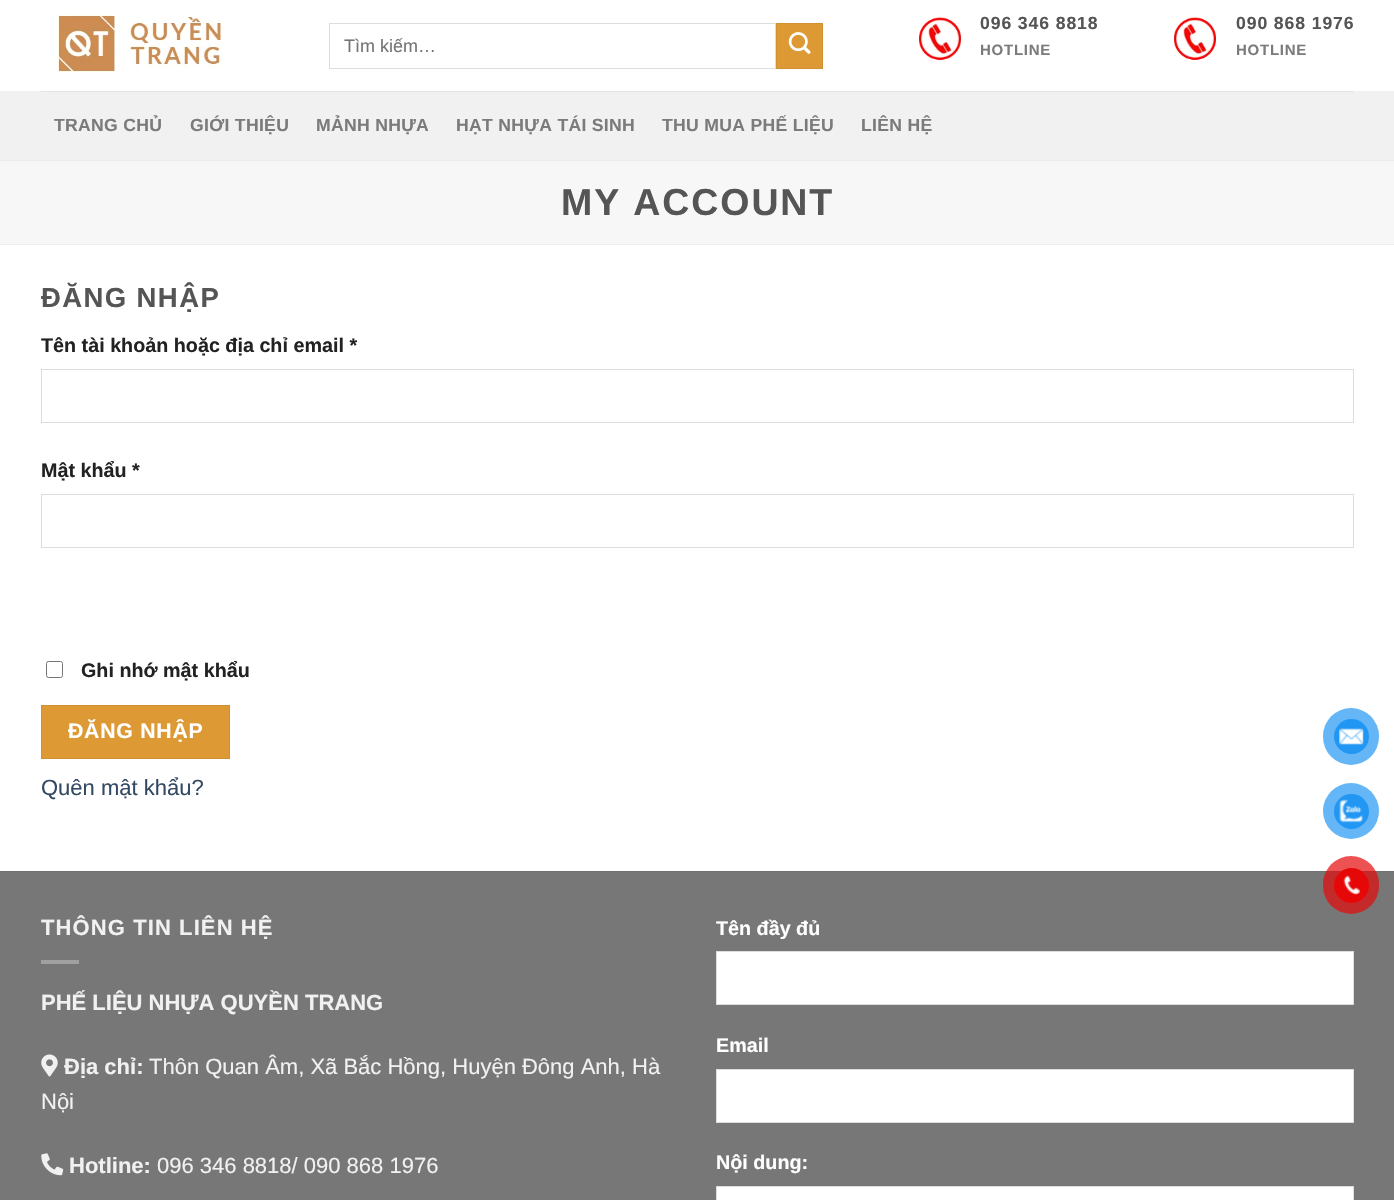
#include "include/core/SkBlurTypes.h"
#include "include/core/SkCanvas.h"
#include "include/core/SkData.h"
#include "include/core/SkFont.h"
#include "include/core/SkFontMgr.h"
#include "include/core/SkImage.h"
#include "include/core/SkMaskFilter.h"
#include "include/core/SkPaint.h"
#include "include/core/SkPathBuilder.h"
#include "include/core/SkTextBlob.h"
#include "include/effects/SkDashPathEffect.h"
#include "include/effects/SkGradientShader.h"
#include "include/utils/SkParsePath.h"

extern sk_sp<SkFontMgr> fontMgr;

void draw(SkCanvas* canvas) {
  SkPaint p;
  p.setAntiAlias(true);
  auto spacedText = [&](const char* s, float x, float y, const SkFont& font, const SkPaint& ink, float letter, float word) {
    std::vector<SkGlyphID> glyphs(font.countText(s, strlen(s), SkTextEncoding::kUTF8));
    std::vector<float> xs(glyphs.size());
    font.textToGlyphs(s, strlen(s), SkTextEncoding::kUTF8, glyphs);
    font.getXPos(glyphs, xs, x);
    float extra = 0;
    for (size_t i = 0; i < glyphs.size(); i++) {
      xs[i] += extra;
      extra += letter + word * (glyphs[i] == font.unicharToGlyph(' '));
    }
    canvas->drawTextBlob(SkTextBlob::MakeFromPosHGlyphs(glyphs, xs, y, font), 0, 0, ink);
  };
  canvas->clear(SK_ColorWHITE);
  canvas->drawImageRect(SkImages::DeferredFromEncodedData(SkData::MakeFromFileName("images/1.png")), SkRect::MakeLTRB(56, 15, 222, 73), SkSamplingOptions());
  p.setStyle(SkPaint::kStroke_Style);
  p.setStrokeWidth(1);
  p.setColor(SkColorSetRGB(221, 221, 221));
  canvas->drawRect(SkRect::MakeLTRB(329.5f, 23.5f, 775.5f, 68.5f), p);
  p.setStyle(SkPaint::kFill_Style);
  p.setColor(SkColorSetRGB(221, 153, 51));
  canvas->drawRect(SkRect::MakeLTRB(776.5f, 23.5f, 822.5f, 68.5f), p);
  p.setStyle(SkPaint::kStroke_Style);
  p.setColor(SkColorSetRGB(210, 145, 48));
  canvas->drawRect(SkRect::MakeLTRB(776.5f, 23.5f, 822.5f, 68.5f), p);
  canvas->drawImageRect(SkImages::DeferredFromEncodedData(SkData::MakeFromFileName("images/2.png")), SkRect::MakeLTRB(788, 32, 811, 54), SkSamplingOptions());
  canvas->drawImageRect(SkImages::DeferredFromEncodedData(SkData::MakeFromFileName("images/3.png")), SkRect::MakeLTRB(919, 17, 961, 60), SkSamplingOptions());
  canvas->drawImageRect(SkImages::DeferredFromEncodedData(SkData::MakeFromFileName("images/3.png")), SkRect::MakeLTRB(1174, 17, 1216, 60), SkSamplingOptions());
  p.setStyle(SkPaint::kFill_Style);
  p.setColor(SkColorSetRGB(241, 241, 241));
  canvas->drawRect(SkRect::MakeLTRB(0, 91, 1394, 160), p);
  p.setColor(SkColorSetRGB(229, 229, 229));
  canvas->drawRect(SkRect::MakeLTRB(41, 91, 1354, 92), p);
  p.setColor(SkColorSetRGB(247, 247, 247));
  canvas->drawRect(SkRect::MakeLTRB(0, 161, 1394, 244), p);
  p.setColor(SkColorSetRGB(236, 236, 236));
  canvas->drawRect(SkRect::MakeLTRB(0, 160, 1394, 161), p);
  canvas->drawRect(SkRect::MakeLTRB(0, 244, 1394, 245), p);
  p.setStyle(SkPaint::kStroke_Style);
  p.setColor(SkColorSetRGB(221, 221, 221));
  canvas->drawRect(SkRect::MakeLTRB(41.5f, 369.5f, 1353.5f, 422.5f), p);
  canvas->drawRect(SkRect::MakeLTRB(41.5f, 494.5f, 1353.5f, 547.5f), p);
  p.setColor(SkColorSetRGB(118, 118, 118));
  canvas->drawRoundRect(SkRect::MakeLTRB(46.5f, 661.5f, 62.5f, 677.5f), 2, 2, p);
  p.setStyle(SkPaint::kFill_Style);
  p.setColor(SkColorSetRGB(221, 153, 51));
  canvas->drawRect(SkRect::MakeLTRB(41.5f, 705.5f, 229.5f, 758.5f), p);
  p.setStyle(SkPaint::kStroke_Style);
  p.setColor(SkColorSetRGB(210, 145, 48));
  canvas->drawRect(SkRect::MakeLTRB(41.5f, 705.5f, 229.5f, 758.5f), p);
  p.setStyle(SkPaint::kFill_Style);
  p.setColor(SkColorSetRGB(119, 119, 119));
  canvas->drawRect(SkRect::MakeLTRB(0, 872, 1394, 1200), p);
  p.setColor(SkColorSetRGB(113, 113, 113));
  canvas->drawRect(SkRect::MakeLTRB(0, 871, 1394, 872), p);
  p.setColor(SkColorSetRGB(160, 160, 160));
  canvas->drawRect(SkRect::MakeLTRB(41, 960, 79, 964), p);
  canvas->drawImageRect(SkImages::DeferredFromEncodedData(SkData::MakeFromFileName("images/4.png")), SkRect::MakeLTRB(41, 1054, 58, 1077), SkSamplingOptions());
  canvas->drawImageRect(SkImages::DeferredFromEncodedData(SkData::MakeFromFileName("images/5.png")), SkRect::MakeLTRB(41, 1153, 64, 1176), SkSamplingOptions());
  p.setColor(SK_ColorWHITE);
  canvas->drawRect(SkRect::MakeLTRB(716.5f, 951.5f, 1353.5f, 1004.5f), p);
  p.setStyle(SkPaint::kStroke_Style);
  p.setColor(SkColorSetRGB(221, 221, 221));
  canvas->drawRect(SkRect::MakeLTRB(716.5f, 951.5f, 1353.5f, 1004.5f), p);
  p.setStyle(SkPaint::kFill_Style);
  p.setColor(SK_ColorWHITE);
  canvas->drawRect(SkRect::MakeLTRB(716.5f, 1069.5f, 1353.5f, 1122.5f), p);
  p.setStyle(SkPaint::kStroke_Style);
  p.setColor(SkColorSetRGB(221, 221, 221));
  canvas->drawRect(SkRect::MakeLTRB(716.5f, 1069.5f, 1353.5f, 1122.5f), p);
  p.setStyle(SkPaint::kFill_Style);
  p.setColor(SK_ColorWHITE);
  canvas->drawRect(SkRect::MakeLTRB(716.5f, 1186.5f, 1353.5f, 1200.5f), p);
  p.setStyle(SkPaint::kStroke_Style);
  p.setColor(SkColorSetRGB(221, 221, 221));
  canvas->drawRect(SkRect::MakeLTRB(716.5f, 1186.5f, 1353.5f, 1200.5f), p);
  p.setStyle(SkPaint::kFill_Style);
  p.setColor(SkColorSetRGB(100, 182, 247));
  canvas->drawRoundRect(SkRect::MakeLTRB(1323, 708, 1379, 765), 28, 28, p);
  p.setColor(SkColorSetRGB(33, 150, 243));
  canvas->drawCircle(1351.5f, 736.5f, 17.5f, p);
  canvas->drawImageRect(SkImages::DeferredFromEncodedData(SkData::MakeFromFileName("images/6.png")), SkRect::MakeLTRB(1339, 728, 1364, 745), SkSamplingOptions());
  p.setColor(SkColorSetRGB(100, 182, 247));
  canvas->drawCircle(1351, 811, 28, p);
  p.setColor(SkColorSetRGB(33, 150, 243));
  canvas->drawCircle(1351.5f, 811.5f, 17.5f, p);
  canvas->drawImageRect(SkImages::DeferredFromEncodedData(SkData::MakeFromFileName("images/7.png")), SkRect::MakeLTRB(1339, 799, 1363, 823), SkSamplingOptions());
  p.setColor(SkColorSetARGB(179, 230, 8, 8));
  canvas->drawRoundRect(SkRect::MakeLTRB(1323, 856, 1379, 914), 28, 28, p);
  p.setColor(SkColorSetRGB(230, 8, 8));
  canvas->drawCircle(1351.5f, 885.5f, 17.5f, p);
  canvas->drawImageRect(SkImages::DeferredFromEncodedData(SkData::MakeFromFileName("images/8.png")), SkRect::MakeLTRB(1343, 875, 1360, 895), SkSamplingOptions());
  SkFont font1(fontMgr->matchFamilyStyle("Liberation Sans", SkFontStyle::Normal()), 18);
  font1.setSubpixel(true);
  p.setColor(SkColorSetRGB(117, 117, 117));
  canvas->drawString("Tìm kiếm…", 344, 52, font1, p);
  SkFont font2(fontMgr->matchFamilyStyle("Liberation Sans", SkFontStyle::Bold()), 17.6f);
  font2.setSubpixel(true);
  p.setColor(SkColorSetRGB(85, 85, 85));
  spacedText("096 346 8818", 980, 29, font2, p, 0.9f, 0);
  SkFont font3(fontMgr->matchFamilyStyle("Liberation Sans", SkFontStyle::Bold()), 15);
  font3.setSubpixel(true);
  p.setColor(SkColorSetRGB(123, 123, 123));
  spacedText("HOTLINE", 980, 55, font3, p, 0.75f, 0);
  p.setColor(SkColorSetRGB(85, 85, 85));
  spacedText("090 868 1976", 1236, 29, font2, p, 0.9f, 0);
  p.setColor(SkColorSetRGB(123, 123, 123));
  spacedText("HOTLINE", 1236, 55, font3, p, 0.75f, 0);
  spacedText("TRANG CHỦ", 54, 131, font2, p, 0.3f, 0);
  spacedText("GIỚI THIỆU", 190, 131, font2, p, 0.3f, 0);
  spacedText("MẢNH NHỰA", 316, 131, font2, p, 0.3f, 0);
  spacedText("HẠT NHỰA TÁI SINH", 456, 131, font2, p, 0.3f, 0);
  spacedText("THU MUA PHẾ LIỆU", 662, 131, font2, p, 0.3f, 0);
  spacedText("LIÊN HỆ", 861, 131, font2, p, 0.3f, 0);
  SkFont font4(fontMgr->matchFamilyStyle("Liberation Sans", SkFontStyle::Bold()), 37.5f);
  font4.setSubpixel(true);
  p.setColor(SkColorSetRGB(85, 85, 85));
  spacedText("MY ACCOUNT", 561, 215, font4, p, 1.9f, 0);
  SkFont font5(fontMgr->matchFamilyStyle("Liberation Sans", SkFontStyle::Bold()), 27.5f);
  font5.setSubpixel(true);
  spacedText("ĐĂNG NHẬP", 41, 307, font5, p, 1.4f, 0);
  SkFont font6(fontMgr->matchFamilyStyle("Liberation Sans", SkFontStyle::Bold()), 19.75f);
  font6.setSubpixel(true);
  p.setColor(SkColorSetRGB(34, 34, 34));
  canvas->drawString("Tên tài khoản hoặc địa chỉ email *", 41, 352, font6, p);
  canvas->drawString("Mật khẩu *", 41, 477, font6, p);
  canvas->drawString("Ghi nhớ mật khẩu", 81, 677, font6, p);
  SkFont font7(fontMgr->matchFamilyStyle("Liberation Sans", SkFontStyle::Bold()), 21.25f);
  font7.setSubpixel(true);
  p.setColor(SK_ColorWHITE);
  spacedText("ĐĂNG NHẬP", 68, 738, font7, p, 0.75f, 0);
  SkFont font8(fontMgr->matchFamilyStyle("Liberation Sans", SkFontStyle::Normal()), 22);
  font8.setSubpixel(true);
  p.setColor(SkColorSetRGB(51, 72, 98));
  canvas->drawString("Quên mật khẩu?", 41, 795, font8, p);
  SkFont font9(fontMgr->matchFamilyStyle("Liberation Sans", SkFontStyle::Bold()), 22);
  font9.setSubpixel(true);
  p.setColor(SkColorSetRGB(241, 241, 241));
  spacedText("THÔNG TIN LIÊN HỆ", 41, 935, font9, p, 1.1f, 0);
  canvas->drawString("PHẾ LIỆU NHỰA QUYỀN TRANG", 41, 1010, font9, p);
  canvas->drawString("Địa chỉ:", 64, 1074, font9, p);
  canvas->drawString("Thôn Quan Âm, Xã Bắc Hồng, Huyện Đông Anh, Hà", 149, 1074, font8, p);
  canvas->drawString("Nội", 41, 1109, font8, p);
  canvas->drawString("Hotline:", 69, 1173, font9, p);
  canvas->drawString("096 346 8818/ 090 868 1976", 157, 1173, font8, p);
  p.setColor(SK_ColorWHITE);
  canvas->drawString("Tên đầy đủ", 716, 935, font6, p);
  canvas->drawString("Email", 716, 1052, font6, p);
  canvas->drawString("Nội dung:", 716, 1169, font6, p);
}
